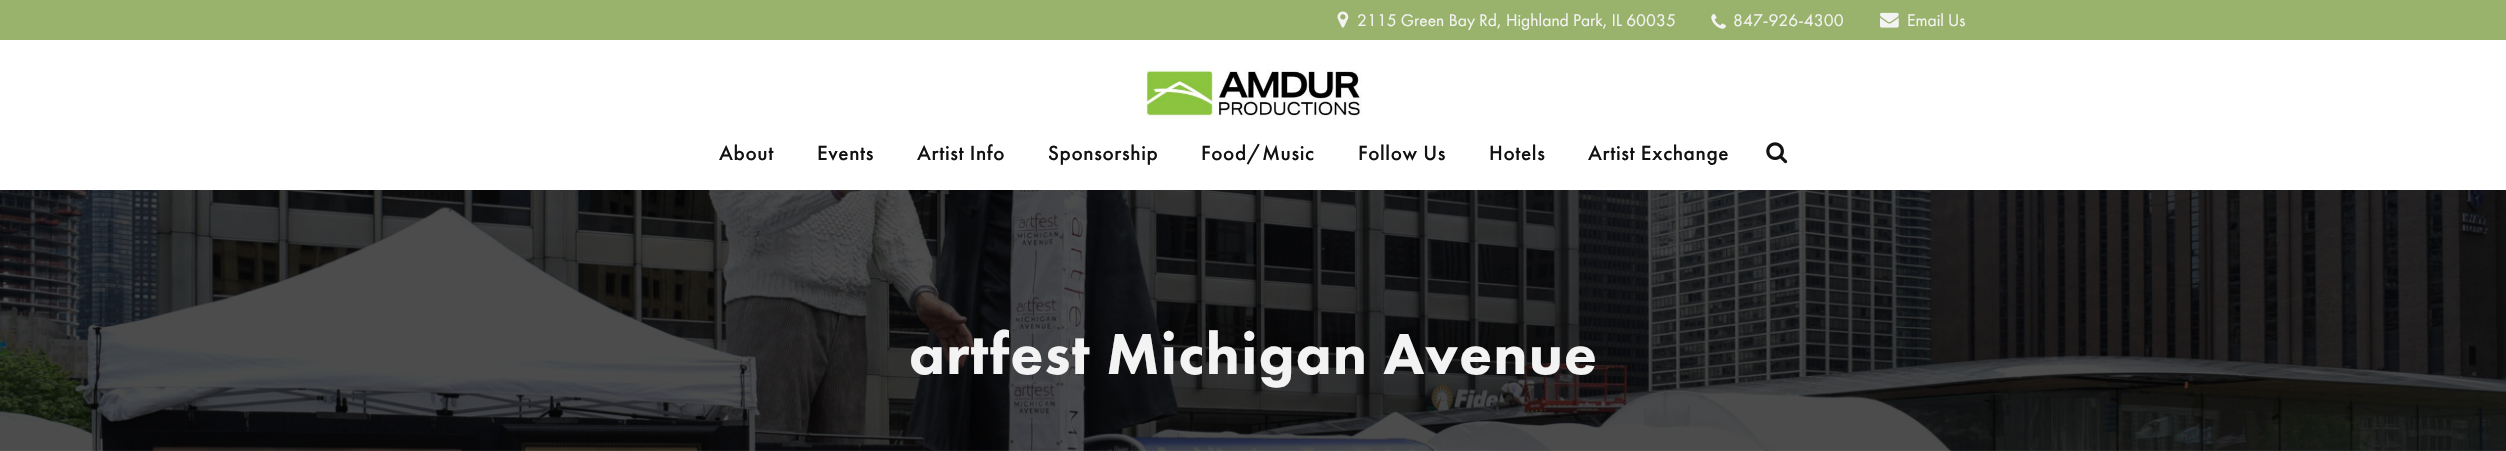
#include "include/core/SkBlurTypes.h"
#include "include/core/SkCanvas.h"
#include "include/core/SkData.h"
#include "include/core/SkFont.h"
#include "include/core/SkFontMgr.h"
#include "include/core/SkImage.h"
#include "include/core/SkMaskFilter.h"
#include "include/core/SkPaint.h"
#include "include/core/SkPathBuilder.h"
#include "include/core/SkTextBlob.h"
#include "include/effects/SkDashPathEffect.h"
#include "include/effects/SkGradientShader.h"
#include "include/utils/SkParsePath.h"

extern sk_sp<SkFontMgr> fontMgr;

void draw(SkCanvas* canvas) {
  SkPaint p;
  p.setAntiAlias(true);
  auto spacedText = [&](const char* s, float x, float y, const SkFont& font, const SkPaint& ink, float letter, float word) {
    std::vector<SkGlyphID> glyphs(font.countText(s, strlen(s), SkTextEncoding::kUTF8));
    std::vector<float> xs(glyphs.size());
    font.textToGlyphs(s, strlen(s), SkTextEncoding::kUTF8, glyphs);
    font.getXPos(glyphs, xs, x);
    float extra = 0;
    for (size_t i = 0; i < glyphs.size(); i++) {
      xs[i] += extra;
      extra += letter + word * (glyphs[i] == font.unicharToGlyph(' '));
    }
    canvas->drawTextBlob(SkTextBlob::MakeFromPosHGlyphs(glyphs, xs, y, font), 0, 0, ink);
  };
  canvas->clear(SK_ColorWHITE);
  p.setColor(SkColorSetRGB(153, 179, 108));
  canvas->drawRect(SkRect::MakeLTRB(0, 0, 2506, 40), p);
  canvas->drawImageRect(SkImages::DeferredFromEncodedData(SkData::MakeFromFileName("images/1.png")), SkRect::MakeLTRB(1337, 11, 1349, 28), SkSamplingOptions());
  canvas->drawImageRect(SkImages::DeferredFromEncodedData(SkData::MakeFromFileName("images/2.png")), SkRect::MakeLTRB(1711, 14, 1726, 29), SkSamplingOptions());
  canvas->drawImageRect(SkImages::DeferredFromEncodedData(SkData::MakeFromFileName("images/3.png")), SkRect::MakeLTRB(1880, 12, 1899, 28), SkSamplingOptions());
  canvas->drawImageRect(SkImages::DeferredFromEncodedData(SkData::MakeFromFileName("images/4.png")), SkRect::MakeLTRB(1141, 65, 1362, 119), SkSamplingOptions());
  canvas->drawImageRect(SkImages::DeferredFromEncodedData(SkData::MakeFromFileName("images/5.png")), SkRect::MakeLTRB(1766, 142, 1788, 164), SkSamplingOptions());
  canvas->drawImageRect(SkImages::DeferredFromEncodedData(SkData::MakeFromFileName("images/6.png")), SkRect::MakeLTRB(0, 190, 2506, 451), SkSamplingOptions());
  SkFont font1(fontMgr->matchFamilyStyle("Futura PT", SkFontStyle::Normal()), 17.5f);
  font1.setSubpixel(true);
  p.setColor(SkColorSetRGB(243, 243, 243));
  canvas->drawString("2115 Green Bay Rd, Highland Park, IL 60035", 1357, 26, font1, p);
  canvas->drawString("847-926-4300", 1733, 26, font1, p);
  canvas->drawString("Email Us", 1907, 26, font1, p);
  SkFont font2(fontMgr->matchFamilyStyle("Futura PT", SkFontStyle(500, SkFontStyle::kNormal_Width, SkFontStyle::kUpright_Slant)), 21.25f);
  font2.setSubpixel(true);
  p.setColor(SkColorSetRGB(18, 18, 18));
  spacedText("About", 719, 160, font2, p, 0.6f, 0);
  spacedText("Events", 817, 160, font2, p, 0.6f, 0);
  spacedText("Artist Info", 917, 160, font2, p, 0.6f, 0);
  spacedText("Sponsorship", 1048, 160, font2, p, 0.6f, 0);
  spacedText("Food/Music", 1201, 160, font2, p, 0.6f, 0);
  spacedText("Follow Us", 1358, 160, font2, p, 0.6f, 0);
  spacedText("Hotels", 1489, 160, font2, p, 0.6f, 0);
  spacedText("Artist Exchange", 1588, 160, font2, p, 0.6f, 0);
  SkFont font3(fontMgr->matchFamilyStyle("Futura PT", SkFontStyle(900, SkFontStyle::kNormal_Width, SkFontStyle::kUpright_Slant)), 60);
  font3.setSubpixel(true);
  p.setColor(SkColorSetRGB(243, 243, 243));
  spacedText("artfest Michigan Avenue", 909, 374, font3, p, 1.25f, 0);
}
